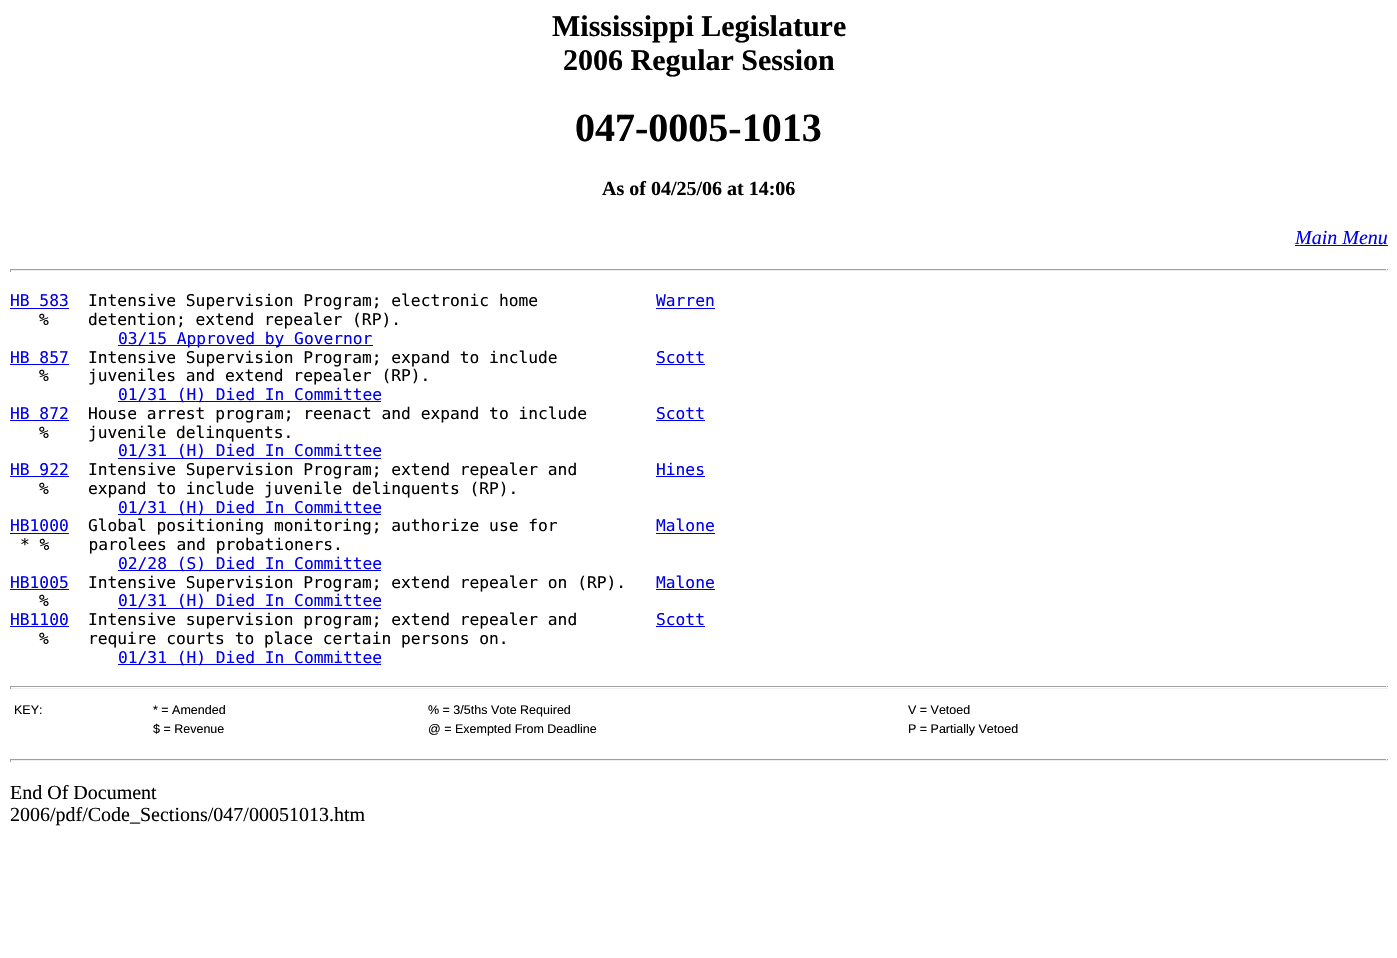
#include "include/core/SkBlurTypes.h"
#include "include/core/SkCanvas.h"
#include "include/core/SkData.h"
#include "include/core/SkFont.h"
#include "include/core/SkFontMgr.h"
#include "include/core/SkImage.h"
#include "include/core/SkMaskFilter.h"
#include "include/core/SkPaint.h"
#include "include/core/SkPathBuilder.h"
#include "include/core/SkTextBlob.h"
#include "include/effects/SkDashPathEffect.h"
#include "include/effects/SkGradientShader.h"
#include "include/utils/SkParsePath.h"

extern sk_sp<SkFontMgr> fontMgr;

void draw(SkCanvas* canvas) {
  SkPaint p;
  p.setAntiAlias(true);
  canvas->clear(SK_ColorWHITE);
  p.setColor(SkColorSetRGB(0, 0, 238));
  canvas->drawRect(SkRect::MakeLTRB(1295, 245, 1388, 246), p);
  p.setColor(SkColorSetRGB(159, 159, 159));
  canvas->drawRect(SkRect::MakeLTRB(10, 269, 1388, 270), p);
  p.setColor(SkColorSetRGB(238, 238, 238));
  canvas->drawRect(SkRect::MakeLTRB(1386, 269, 1387, 272), p);
  canvas->drawRect(SkRect::MakeLTRB(10, 270, 1388, 271), p);
  p.setColor(SkColorSetRGB(159, 159, 159));
  canvas->drawRect(SkRect::MakeLTRB(10, 269, 11, 272), p);
  p.setColor(SkColorSetRGB(0, 0, 238));
  canvas->drawRect(SkRect::MakeLTRB(10, 308, 69, 309), p);
  canvas->drawRect(SkRect::MakeLTRB(656, 308, 715, 309), p);
  canvas->drawRect(SkRect::MakeLTRB(118, 345, 373, 346), p);
  canvas->drawRect(SkRect::MakeLTRB(10, 364, 69, 365), p);
  canvas->drawRect(SkRect::MakeLTRB(656, 364, 705, 365), p);
  canvas->drawRect(SkRect::MakeLTRB(118, 401, 381, 402), p);
  canvas->drawRect(SkRect::MakeLTRB(10, 420, 69, 421), p);
  canvas->drawRect(SkRect::MakeLTRB(656, 420, 705, 421), p);
  canvas->drawRect(SkRect::MakeLTRB(118, 458, 381, 459), p);
  canvas->drawRect(SkRect::MakeLTRB(10, 476, 69, 477), p);
  canvas->drawRect(SkRect::MakeLTRB(656, 476, 705, 477), p);
  canvas->drawRect(SkRect::MakeLTRB(118, 514, 381, 515), p);
  canvas->drawRect(SkRect::MakeLTRB(10, 533, 69, 534), p);
  canvas->drawRect(SkRect::MakeLTRB(656, 533, 715, 534), p);
  canvas->drawRect(SkRect::MakeLTRB(118, 570, 381, 571), p);
  canvas->drawRect(SkRect::MakeLTRB(10, 589, 69, 590), p);
  canvas->drawRect(SkRect::MakeLTRB(656, 589, 715, 590), p);
  canvas->drawRect(SkRect::MakeLTRB(118, 608, 381, 609), p);
  canvas->drawRect(SkRect::MakeLTRB(10, 626, 69, 627), p);
  canvas->drawRect(SkRect::MakeLTRB(656, 626, 705, 627), p);
  canvas->drawRect(SkRect::MakeLTRB(118, 664, 381, 665), p);
  p.setColor(SkColorSetRGB(159, 159, 159));
  canvas->drawRect(SkRect::MakeLTRB(10, 686, 1388, 687), p);
  p.setColor(SkColorSetRGB(238, 238, 238));
  canvas->drawRect(SkRect::MakeLTRB(1386, 686, 1387, 689), p);
  canvas->drawRect(SkRect::MakeLTRB(10, 688, 1388, 689), p);
  p.setColor(SkColorSetRGB(159, 159, 159));
  canvas->drawRect(SkRect::MakeLTRB(10, 686, 11, 689), p);
  canvas->drawRect(SkRect::MakeLTRB(10, 759, 1388, 760), p);
  p.setColor(SkColorSetRGB(238, 238, 238));
  canvas->drawRect(SkRect::MakeLTRB(1386, 759, 1387, 762), p);
  canvas->drawRect(SkRect::MakeLTRB(10, 760, 1388, 761), p);
  p.setColor(SkColorSetRGB(159, 159, 159));
  canvas->drawRect(SkRect::MakeLTRB(10, 759, 11, 762), p);
  SkFont font1(fontMgr->matchFamilyStyle("Liberation Serif", SkFontStyle::Bold()), 30);
  font1.setSubpixel(true);
  p.setColor(SK_ColorBLACK);
  canvas->drawString("Mississippi Legislature", 552, 36, font1, p);
  canvas->drawString("2006 Regular Session", 563, 70, font1, p);
  SkFont font2(fontMgr->matchFamilyStyle("Liberation Serif", SkFontStyle::Bold()), 40);
  font2.setSubpixel(true);
  canvas->drawString("047-0005-1013", 575, 141, font2, p);
  SkFont font3(fontMgr->matchFamilyStyle("Liberation Serif", SkFontStyle::Bold()), 20);
  font3.setSubpixel(true);
  canvas->drawString("As of 04/25/06 at 14:06", 602, 195, font3, p);
  SkFont font4(fontMgr->matchFamilyStyle("Liberation Serif", SkFontStyle::Italic()), 20);
  font4.setSubpixel(true);
  p.setColor(SkColorSetRGB(0, 0, 238));
  canvas->drawString("Main Menu", 1295, 244, font4, p);
  SkFont font5(fontMgr->matchFamilyStyle("DejaVu Sans Mono", SkFontStyle::Normal()), 16.25f);
  font5.setSubpixel(true);
  canvas->drawString("HB 583", 10, 306, font5, p);
  p.setColor(SK_ColorBLACK);
  canvas->drawString("Intensive Supervision Program; electronic home", 88, 306, font5, p);
  p.setColor(SkColorSetRGB(0, 0, 238));
  canvas->drawString("Warren", 656, 306, font5, p);
  p.setColor(SK_ColorBLACK);
  canvas->drawString("%    detention; extend repealer (RP).", 39, 325, font5, p);
  p.setColor(SkColorSetRGB(0, 0, 238));
  canvas->drawString("03/15 Approved by Governor", 118, 344, font5, p);
  canvas->drawString("HB 857", 10, 363, font5, p);
  p.setColor(SK_ColorBLACK);
  canvas->drawString("Intensive Supervision Program; expand to include", 88, 363, font5, p);
  p.setColor(SkColorSetRGB(0, 0, 238));
  canvas->drawString("Scott", 656, 363, font5, p);
  p.setColor(SK_ColorBLACK);
  canvas->drawString("%    juveniles and extend repealer (RP).", 39, 381, font5, p);
  p.setColor(SkColorSetRGB(0, 0, 238));
  canvas->drawString("01/31 (H) Died In Committee", 118, 400, font5, p);
  canvas->drawString("HB 872", 10, 419, font5, p);
  p.setColor(SK_ColorBLACK);
  canvas->drawString("House arrest program; reenact and expand to include", 88, 419, font5, p);
  p.setColor(SkColorSetRGB(0, 0, 238));
  canvas->drawString("Scott", 656, 419, font5, p);
  p.setColor(SK_ColorBLACK);
  canvas->drawString("%    juvenile delinquents.", 39, 438, font5, p);
  p.setColor(SkColorSetRGB(0, 0, 238));
  canvas->drawString("01/31 (H) Died In Committee", 118, 456, font5, p);
  canvas->drawString("HB 922", 10, 475, font5, p);
  p.setColor(SK_ColorBLACK);
  canvas->drawString("Intensive Supervision Program; extend repealer and", 88, 475, font5, p);
  p.setColor(SkColorSetRGB(0, 0, 238));
  canvas->drawString("Hines", 656, 475, font5, p);
  p.setColor(SK_ColorBLACK);
  canvas->drawString("%    expand to include juvenile delinquents (RP).", 39, 494, font5, p);
  p.setColor(SkColorSetRGB(0, 0, 238));
  canvas->drawString("01/31 (H) Died In Committee", 118, 513, font5, p);
  canvas->drawString("HB1000", 10, 531, font5, p);
  p.setColor(SK_ColorBLACK);
  canvas->drawString("Global positioning monitoring; authorize use for", 88, 531, font5, p);
  p.setColor(SkColorSetRGB(0, 0, 238));
  canvas->drawString("Malone", 656, 531, font5, p);
  p.setColor(SK_ColorBLACK);
  canvas->drawString("* %    parolees and probationers.", 20, 550, font5, p);
  p.setColor(SkColorSetRGB(0, 0, 238));
  canvas->drawString("02/28 (S) Died In Committee", 118, 569, font5, p);
  canvas->drawString("HB1005", 10, 588, font5, p);
  p.setColor(SK_ColorBLACK);
  canvas->drawString("Intensive Supervision Program; extend repealer on (RP).", 88, 588, font5, p);
  p.setColor(SkColorSetRGB(0, 0, 238));
  canvas->drawString("Malone", 656, 588, font5, p);
  p.setColor(SK_ColorBLACK);
  canvas->drawString("%", 39, 606, font5, p);
  p.setColor(SkColorSetRGB(0, 0, 238));
  canvas->drawString("01/31 (H) Died In Committee", 118, 606, font5, p);
  canvas->drawString("HB1100", 10, 625, font5, p);
  p.setColor(SK_ColorBLACK);
  canvas->drawString("Intensive supervision program; extend repealer and", 88, 625, font5, p);
  p.setColor(SkColorSetRGB(0, 0, 238));
  canvas->drawString("Scott", 656, 625, font5, p);
  p.setColor(SK_ColorBLACK);
  canvas->drawString("%    require courts to place certain persons on.", 39, 644, font5, p);
  p.setColor(SkColorSetRGB(0, 0, 238));
  canvas->drawString("01/31 (H) Died In Committee", 118, 663, font5, p);
  SkFont font6(fontMgr->matchFamilyStyle("Liberation Sans", SkFontStyle::Normal()), 12.5f);
  font6.setSubpixel(true);
  p.setColor(SK_ColorBLACK);
  canvas->drawString("KEY:", 14, 714, font6, p);
  canvas->drawString("* = Amended", 153, 714, font6, p);
  canvas->drawString("% = 3/5ths Vote Required", 428, 714, font6, p);
  canvas->drawString("V = Vetoed", 908, 714, font6, p);
  canvas->drawString("$ = Revenue", 153, 733, font6, p);
  canvas->drawString("@ = Exempted From Deadline", 428, 733, font6, p);
  canvas->drawString("P = Partially Vetoed", 908, 733, font6, p);
  SkFont font7(fontMgr->matchFamilyStyle("Liberation Serif", SkFontStyle::Normal()), 20);
  font7.setSubpixel(true);
  canvas->drawString("End Of Document", 10, 799, font7, p);
  canvas->drawString("2006/pdf/Code_Sections/047/00051013.htm", 10, 821, font7, p);
}
